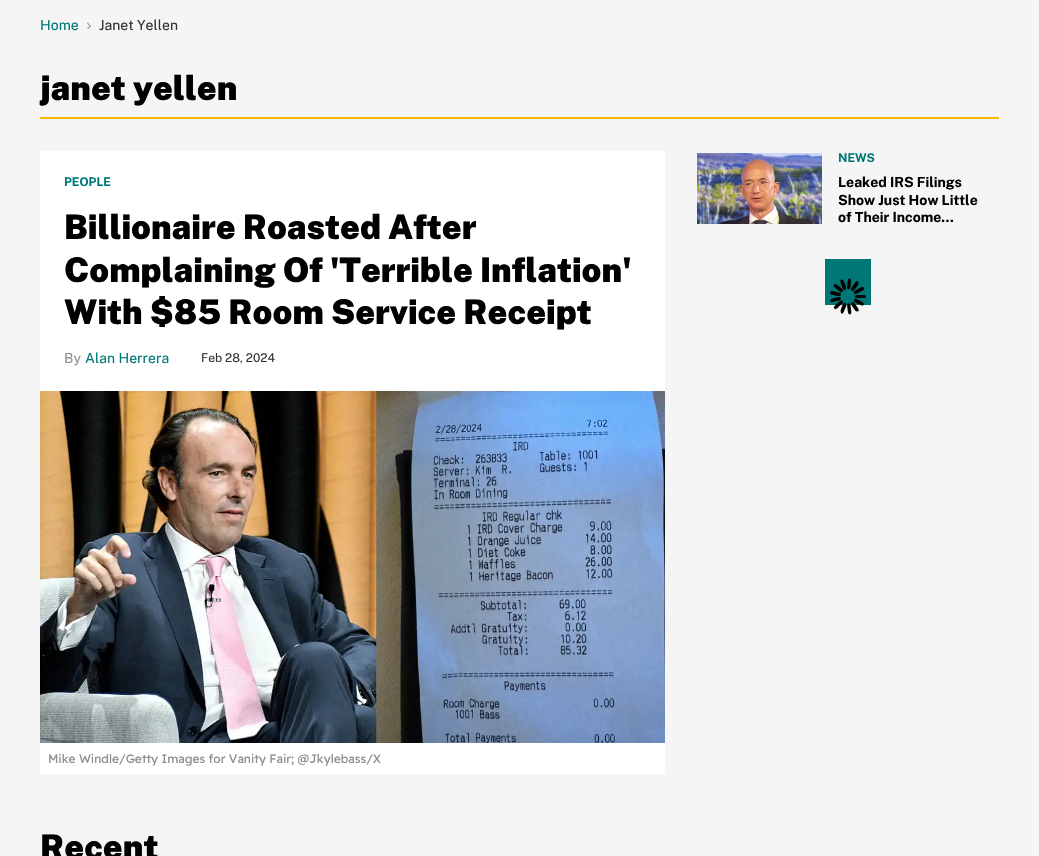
#include "include/core/SkBlurTypes.h"
#include "include/core/SkCanvas.h"
#include "include/core/SkData.h"
#include "include/core/SkFont.h"
#include "include/core/SkFontMgr.h"
#include "include/core/SkImage.h"
#include "include/core/SkMaskFilter.h"
#include "include/core/SkPaint.h"
#include "include/core/SkPathBuilder.h"
#include "include/core/SkTextBlob.h"
#include "include/effects/SkDashPathEffect.h"
#include "include/effects/SkGradientShader.h"
#include "include/utils/SkParsePath.h"

extern sk_sp<SkFontMgr> fontMgr;

void draw(SkCanvas* canvas) {
  SkPaint p;
  p.setAntiAlias(true);
  canvas->clear(SkColorSetRGB(245, 245, 245));
  canvas->drawImageRect(SkImages::DeferredFromEncodedData(SkData::MakeFromFileName("images/1.png")), SkRect::MakeLTRB(87, 22, 91, 29), SkSamplingOptions());
  p.setColor(SkColorSetRGB(255, 183, 0));
  canvas->drawRect(SkRect::MakeLTRB(40, 117, 999, 119), p);
  p.setColor(SK_ColorWHITE);
  canvas->drawRect(SkRect::MakeLTRB(40, 151, 665, 774), p);
  canvas->drawImageRect(SkImages::DeferredFromEncodedData(SkData::MakeFromFileName("images/2.png")), SkRect::MakeLTRB(40, 391, 665, 743), SkSamplingOptions());
  canvas->drawImageRect(SkImages::DeferredFromEncodedData(SkData::MakeFromFileName("images/3.png")), SkRect::MakeLTRB(697, 153, 822, 224), SkSamplingOptions());
  p.setColor(SkColorSetRGB(0, 119, 119));
  canvas->drawRect(SkRect::MakeLTRB(825, 259, 871, 305), p);
  p.setColor(SK_ColorBLACK);
  canvas->drawPath(SkPathBuilder().moveTo(856.5f, 299).lineTo(859.5f, 300.5f).cubicTo(860.5f, 301, 866.5f, 303.5f, 863, 305.5f).lineTo(861.5f, 305.5f).cubicTo(860, 304.5f, 854.5f, 302.5f, 854, 301).cubicTo(853.5f, 299.5f, 855, 298.5f, 856.5f, 299).close().detach(), p);
  canvas->drawPath(SkPathBuilder().moveTo(854, 302.5f).lineTo(856.5f, 306).cubicTo(857, 306.5f, 861, 311.5f, 857, 311.5f).lineTo(855.5f, 311).cubicTo(854.5f, 309.5f, 851, 305, 851, 303.5f).cubicTo(851.5f, 302, 853.5f, 301.5f, 854, 302.5f).close().detach(), p);
  canvas->drawPath(SkPathBuilder().moveTo(850.5f, 305).lineTo(851, 308.5f).cubicTo(851, 309.5f, 852.5f, 316, 849, 314).lineTo(848, 313).cubicTo(848, 311, 846.5f, 305.5f, 847.5f, 304).cubicTo(848.5f, 303, 850.5f, 303.5f, 850.5f, 305).close().moveTo(846.5f, 305.5f).lineTo(845, 309).cubicTo(844.5f, 309.5f, 843, 316, 841, 313).lineTo(840.5f, 311).cubicTo(841, 309.5f, 842.5f, 304, 844, 303).cubicTo(845.5f, 302.5f, 847, 304, 846.5f, 305.5f).close().detach(), p);
  canvas->drawPath(SkPathBuilder().moveTo(842.5f, 303.5f).lineTo(839.5f, 306).cubicTo(839, 307, 834.5f, 311.5f, 834, 307.5f).lineTo(834.5f, 306).cubicTo(835.5f, 305, 840, 300.5f, 841.5f, 300.5f).cubicTo(843, 300.5f, 843.5f, 302.5f, 842.5f, 303.5f).close().detach(), p);
  canvas->drawPath(SkPathBuilder().moveTo(839.5f, 300.5f).lineTo(836, 301).cubicTo(835, 301.5f, 829, 303.5f, 830.5f, 300).lineTo(831.5f, 299).cubicTo(833, 298.5f, 839, 296.5f, 840, 297).cubicTo(841.5f, 298, 841, 300, 839.5f, 300.5f).close().detach(), p);
  canvas->drawPath(SkPathBuilder().moveTo(839, 296).lineTo(835, 295.5f).cubicTo(834, 295, 828, 294.5f, 830.5f, 291.5f).lineTo(832.5f, 291).cubicTo(834, 291.5f, 840, 292.5f, 840.5f, 293.5f).cubicTo(841.5f, 295, 840.5f, 296.5f, 839, 296).close().detach(), p);
  canvas->drawPath(SkPathBuilder().moveTo(840, 292).lineTo(837, 289.5f).cubicTo(836.5f, 289, 831, 285, 835, 284).lineTo(836.5f, 284.5f).cubicTo(838, 285.5f, 843, 289, 843, 290.5f).cubicTo(843, 292, 841, 293, 840, 292).close().detach(), p);
  canvas->drawPath(SkPathBuilder().moveTo(843, 289).lineTo(841.5f, 285.5f).cubicTo(841.5f, 284.5f, 838.5f, 278.5f, 842.5f, 279.5f).lineTo(843.5f, 280.5f).cubicTo(844, 282, 847, 287.5f, 846, 289).cubicTo(845.5f, 290.5f, 843.5f, 290.5f, 843, 289).close().moveTo(847, 287.5f).lineTo(847.5f, 284).cubicTo(847.5f, 283, 847.5f, 276.5f, 850.5f, 279).lineTo(851, 280.5f).cubicTo(851, 282, 851, 288, 849.5f, 289).cubicTo(848.5f, 290, 847, 289, 847, 287.5f).close().detach(), p);
  canvas->drawPath(SkPathBuilder().moveTo(851, 288.5f).lineTo(853.5f, 285).cubicTo(854, 284.5f, 857, 278.5f, 858.5f, 282.5f).lineTo(858.5f, 284).cubicTo(857.5f, 285.5f, 854.5f, 290.5f, 853, 291).cubicTo(851.5f, 291, 850.5f, 289.5f, 851, 288.5f).close().detach(), p);
  canvas->drawPath(SkPathBuilder().moveTo(854.5f, 291).lineTo(858, 289).cubicTo(859, 288.5f, 864, 285, 864, 289).lineTo(863, 290.5f).cubicTo(861.5f, 291, 856.5f, 294.5f, 855, 294).cubicTo(853.5f, 293.5f, 853.5f, 291.5f, 854.5f, 291).close().detach(), p);
  canvas->drawRoundRect(SkRect::MakeLTRB(855, 295, 866, 298), 1.5f, 1.5f, p);
  SkFont font1(fontMgr->matchFamilyStyle("Public Sans", SkFontStyle::Normal()), 14);
  font1.setSubpixel(true);
  p.setColor(SkColorSetRGB(0, 119, 119));
  canvas->drawString("Home", 40, 30, font1, p);
  p.setColor(SkColorSetRGB(51, 51, 51));
  canvas->drawString("Janet Yellen", 99, 30, font1, p);
  SkFont font2(fontMgr->matchFamilyStyle("Public Sans", SkFontStyle(900, SkFontStyle::kNormal_Width, SkFontStyle::kUpright_Slant)), 34);
  font2.setSubpixel(true);
  p.setColor(SK_ColorBLACK);
  canvas->drawString("janet yellen", 40, 100, font2, p);
  SkFont font3(fontMgr->matchFamilyStyle("Public Sans", SkFontStyle::Bold()), 12);
  font3.setSubpixel(true);
  p.setColor(SkColorSetRGB(0, 119, 119));
  canvas->drawString("PEOPLE", 64, 186, font3, p);
  p.setColor(SK_ColorBLACK);
  canvas->drawString("Billionaire Roasted After", 64, 239, font2, p);
  canvas->drawString("Complaining Of 'Terrible Inflation'", 64, 282, font2, p);
  canvas->drawString("With $85 Room Service Receipt", 64, 324, font2, p);
  p.setColor(SkColorSetRGB(142, 142, 142));
  canvas->drawString("By", 64, 363, font1, p);
  p.setColor(SkColorSetRGB(0, 119, 119));
  canvas->drawString("Alan Herrera", 85, 363, font1, p);
  SkFont font4(fontMgr->matchFamilyStyle("Public Sans", SkFontStyle::Normal()), 12);
  font4.setSubpixel(true);
  p.setColor(SkColorSetRGB(51, 51, 51));
  canvas->drawString("Feb 28, 2024", 201, 362, font4, p);
  SkFont font5(fontMgr->matchFamilyStyle("Readex Pro", SkFontStyle::Normal()), 12);
  font5.setSubpixel(true);
  p.setColor(SkColorSetRGB(142, 142, 142));
  canvas->drawString("Mike Windle/Getty Images for Vanity Fair; @Jkylebass/X", 48, 763, font5, p);
  p.setColor(SkColorSetRGB(0, 119, 119));
  canvas->drawString("NEWS", 838, 162, font3, p);
  SkFont font6(fontMgr->matchFamilyStyle("Public Sans", SkFontStyle::Bold()), 14);
  font6.setSubpixel(true);
  p.setColor(SK_ColorBLACK);
  canvas->drawString("Leaked IRS Filings", 838, 187, font6, p);
  canvas->drawString("Show Just How Little", 838, 205, font6, p);
  canvas->drawString("of Their Income…", 838, 222, font6, p);
  canvas->drawString("Recent", 40, 859, font2, p);
}
